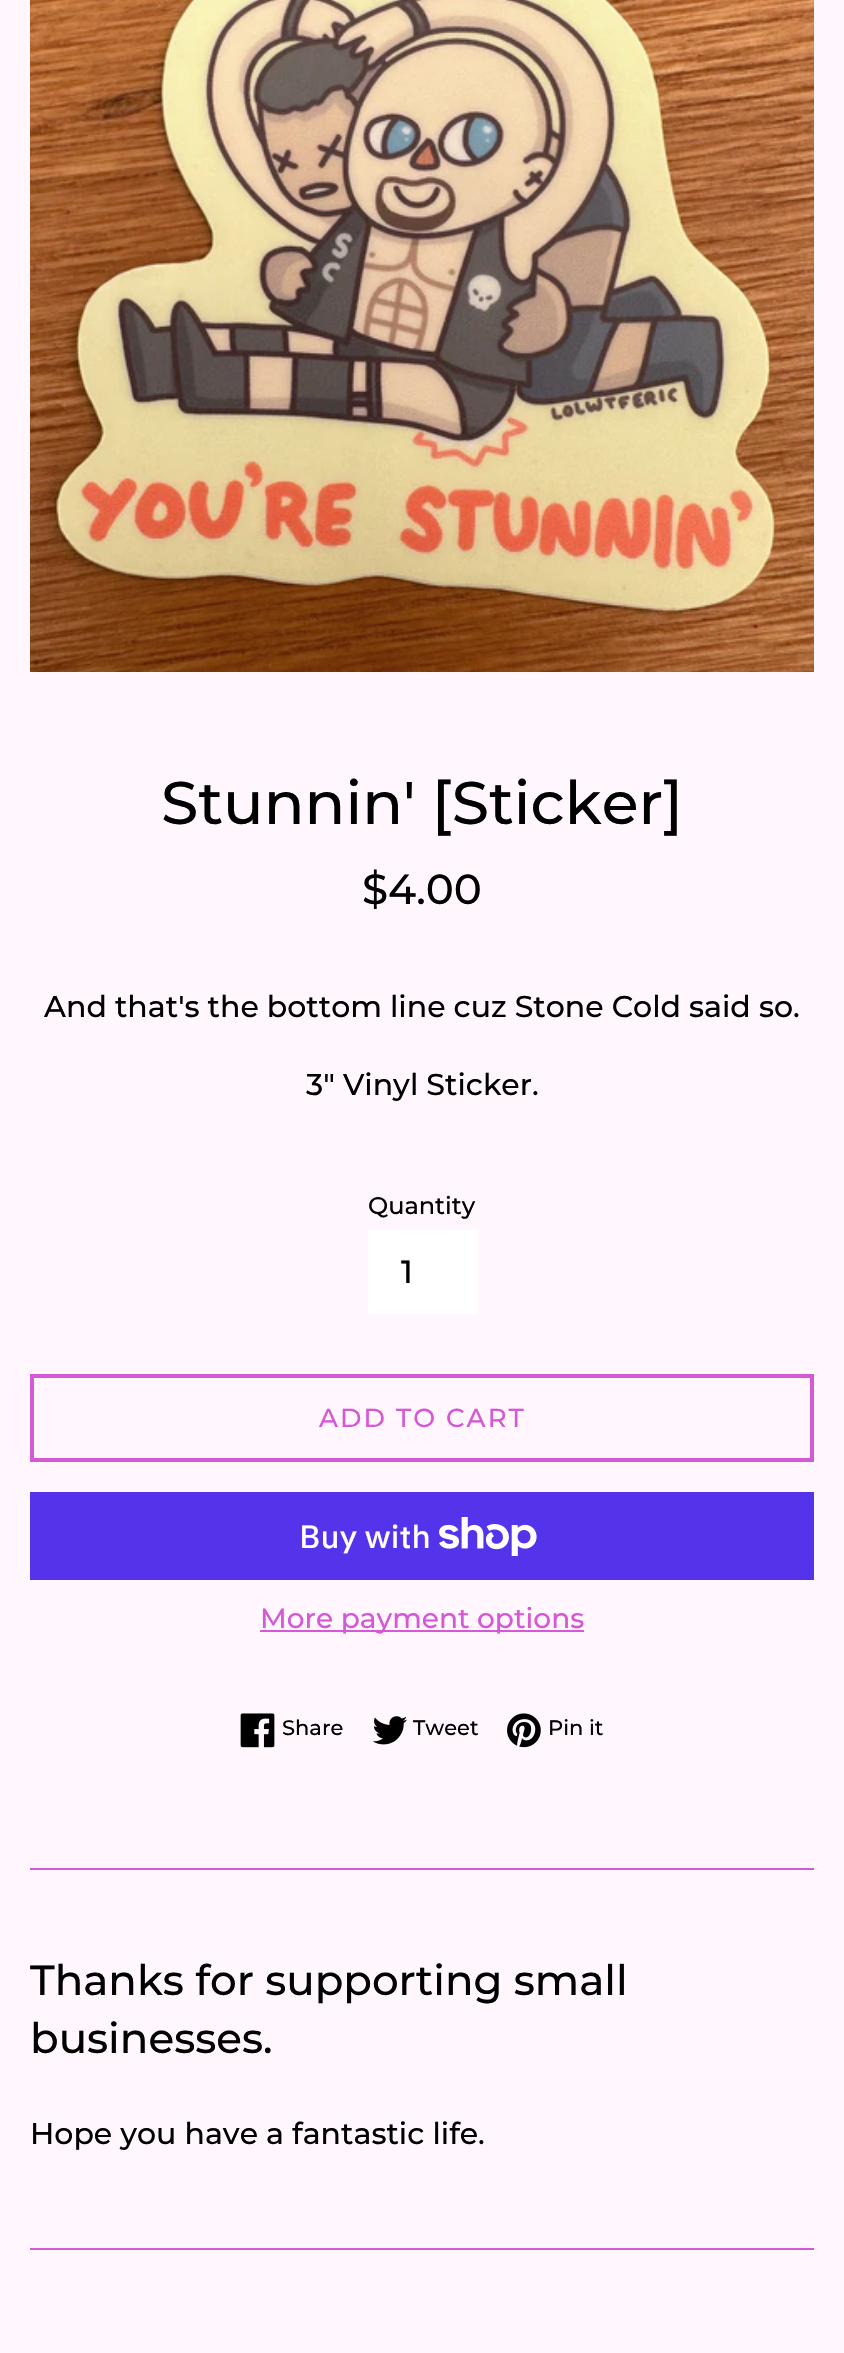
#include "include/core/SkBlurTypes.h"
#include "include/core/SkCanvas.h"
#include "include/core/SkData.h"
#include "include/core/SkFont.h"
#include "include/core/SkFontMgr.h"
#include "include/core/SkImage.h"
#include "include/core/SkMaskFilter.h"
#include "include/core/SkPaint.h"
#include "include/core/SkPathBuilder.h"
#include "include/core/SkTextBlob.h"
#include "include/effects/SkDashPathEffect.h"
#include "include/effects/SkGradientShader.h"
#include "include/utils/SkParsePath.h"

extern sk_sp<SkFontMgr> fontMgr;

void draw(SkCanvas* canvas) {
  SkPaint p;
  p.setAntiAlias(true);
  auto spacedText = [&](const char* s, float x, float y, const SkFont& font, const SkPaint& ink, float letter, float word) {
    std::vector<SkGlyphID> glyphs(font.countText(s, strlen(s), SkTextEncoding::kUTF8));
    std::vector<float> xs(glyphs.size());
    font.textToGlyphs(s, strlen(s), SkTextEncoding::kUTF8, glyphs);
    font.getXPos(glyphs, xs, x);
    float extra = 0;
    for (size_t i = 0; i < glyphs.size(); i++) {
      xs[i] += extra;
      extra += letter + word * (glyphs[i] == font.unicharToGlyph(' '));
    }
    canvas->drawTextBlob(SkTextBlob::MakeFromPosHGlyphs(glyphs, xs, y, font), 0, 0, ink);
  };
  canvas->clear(SkColorSetRGB(255, 247, 253));
  canvas->drawImageRect(SkImages::DeferredFromEncodedData(SkData::MakeFromFileName("images/1.png")), SkRect::MakeLTRB(30, 0, 814, 672), SkSamplingOptions());
  p.setColor(SK_ColorWHITE);
  canvas->drawRect(SkRect::MakeLTRB(368, 1230, 478, 1314), p);
  p.setStyle(SkPaint::kStroke_Style);
  p.setStrokeWidth(4);
  p.setColor(SkColorSetRGB(213, 88, 213));
  canvas->drawRect(SkRect::MakeLTRB(32, 1376, 812, 1460), p);
  p.setStyle(SkPaint::kFill_Style);
  p.setColor(SkColorSetRGB(84, 51, 235));
  canvas->drawRect(SkRect::MakeLTRB(30, 1492, 814, 1580), p);
  canvas->drawImageRect(SkImages::DeferredFromEncodedData(SkData::MakeFromFileName("images/2.png")), SkRect::MakeLTRB(439, 1517, 537, 1556), SkSamplingOptions());
  p.setColor(SkColorSetRGB(213, 88, 213));
  canvas->drawRect(SkRect::MakeLTRB(260, 1630, 584, 1632), p);
  canvas->drawImageRect(SkImages::DeferredFromEncodedData(SkData::MakeFromFileName("images/3.png")), SkRect::MakeLTRB(240, 1713, 275, 1748), SkSamplingOptions());
  canvas->drawImageRect(SkImages::DeferredFromEncodedData(SkData::MakeFromFileName("images/4.png")), SkRect::MakeLTRB(372, 1716, 407, 1745), SkSamplingOptions());
  canvas->drawImageRect(SkImages::DeferredFromEncodedData(SkData::MakeFromFileName("images/5.png")), SkRect::MakeLTRB(507, 1713, 541, 1748), SkSamplingOptions());
  canvas->drawRect(SkRect::MakeLTRB(30, 1868, 814, 1870), p);
  canvas->drawRect(SkRect::MakeLTRB(30, 2248, 814, 2250), p);
  SkFont font1(fontMgr->matchFamilyStyle("Montserrat", SkFontStyle(500, SkFontStyle::kNormal_Width, SkFontStyle::kUpright_Slant)), 60);
  font1.setSubpixel(true);
  p.setColor(SK_ColorBLACK);
  canvas->drawString("Stunnin' [Sticker]", 161, 824, font1, p);
  SkFont font2(fontMgr->matchFamilyStyle("Montserrat", SkFontStyle(500, SkFontStyle::kNormal_Width, SkFontStyle::kUpright_Slant)), 42);
  font2.setSubpixel(true);
  canvas->drawString("$4.00", 362, 904, font2, p);
  SkFont font3(fontMgr->matchFamilyStyle("Montserrat", SkFontStyle(500, SkFontStyle::kNormal_Width, SkFontStyle::kUpright_Slant)), 30);
  font3.setSubpixel(true);
  canvas->drawString("And that's the bottom line cuz Stone Cold said so.", 44, 1017, font3, p);
  canvas->drawString("3\" Vinyl Sticker.", 306, 1095, font3, p);
  SkFont font4(fontMgr->matchFamilyStyle("Montserrat", SkFontStyle(500, SkFontStyle::kNormal_Width, SkFontStyle::kUpright_Slant)), 24);
  font4.setSubpixel(true);
  canvas->drawString("Quantity", 368, 1214, font4, p);
  SkFont font5(fontMgr->matchFamilyStyle("Montserrat", SkFontStyle(500, SkFontStyle::kNormal_Width, SkFontStyle::kUpright_Slant)), 32);
  font5.setSubpixel(true);
  canvas->drawString("1", 401, 1283, font5, p);
  SkFont font6(fontMgr->matchFamilyStyle("Montserrat", SkFontStyle(500, SkFontStyle::kNormal_Width, SkFontStyle::kUpright_Slant)), 26);
  font6.setSubpixel(true);
  p.setColor(SkColorSetRGB(213, 88, 213));
  spacedText("ADD TO CART", 319, 1427, font6, p, 2, 0);
  SkFont font7(fontMgr->matchFamilyStyle("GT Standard", SkFontStyle(500, SkFontStyle::kNormal_Width, SkFontStyle::kUpright_Slant)), 32);
  font7.setSubpixel(true);
  p.setColor(SK_ColorWHITE);
  canvas->drawString("Buy with", 299, 1548, font7, p);
  SkFont font8(fontMgr->matchFamilyStyle("Montserrat", SkFontStyle(500, SkFontStyle::kNormal_Width, SkFontStyle::kUpright_Slant)), 28);
  font8.setSubpixel(true);
  p.setColor(SkColorSetRGB(213, 88, 213));
  canvas->drawString("More payment options", 260, 1628, font8, p);
  SkFont font9(fontMgr->matchFamilyStyle("Montserrat", SkFontStyle(500, SkFontStyle::kNormal_Width, SkFontStyle::kUpright_Slant)), 21);
  font9.setSubpixel(true);
  p.setColor(SK_ColorBLACK);
  canvas->drawString("Share", 282, 1735, font9, p);
  canvas->drawString("Tweet", 413, 1735, font9, p);
  canvas->drawString("Pin it", 548, 1735, font9, p);
  canvas->drawString("Thanks for supporting small", 30, 1995, font2, p);
  canvas->drawString("businesses.", 30, 2053, font2, p);
  canvas->drawString("Hope you have a fantastic life.", 30, 2144, font3, p);
}
